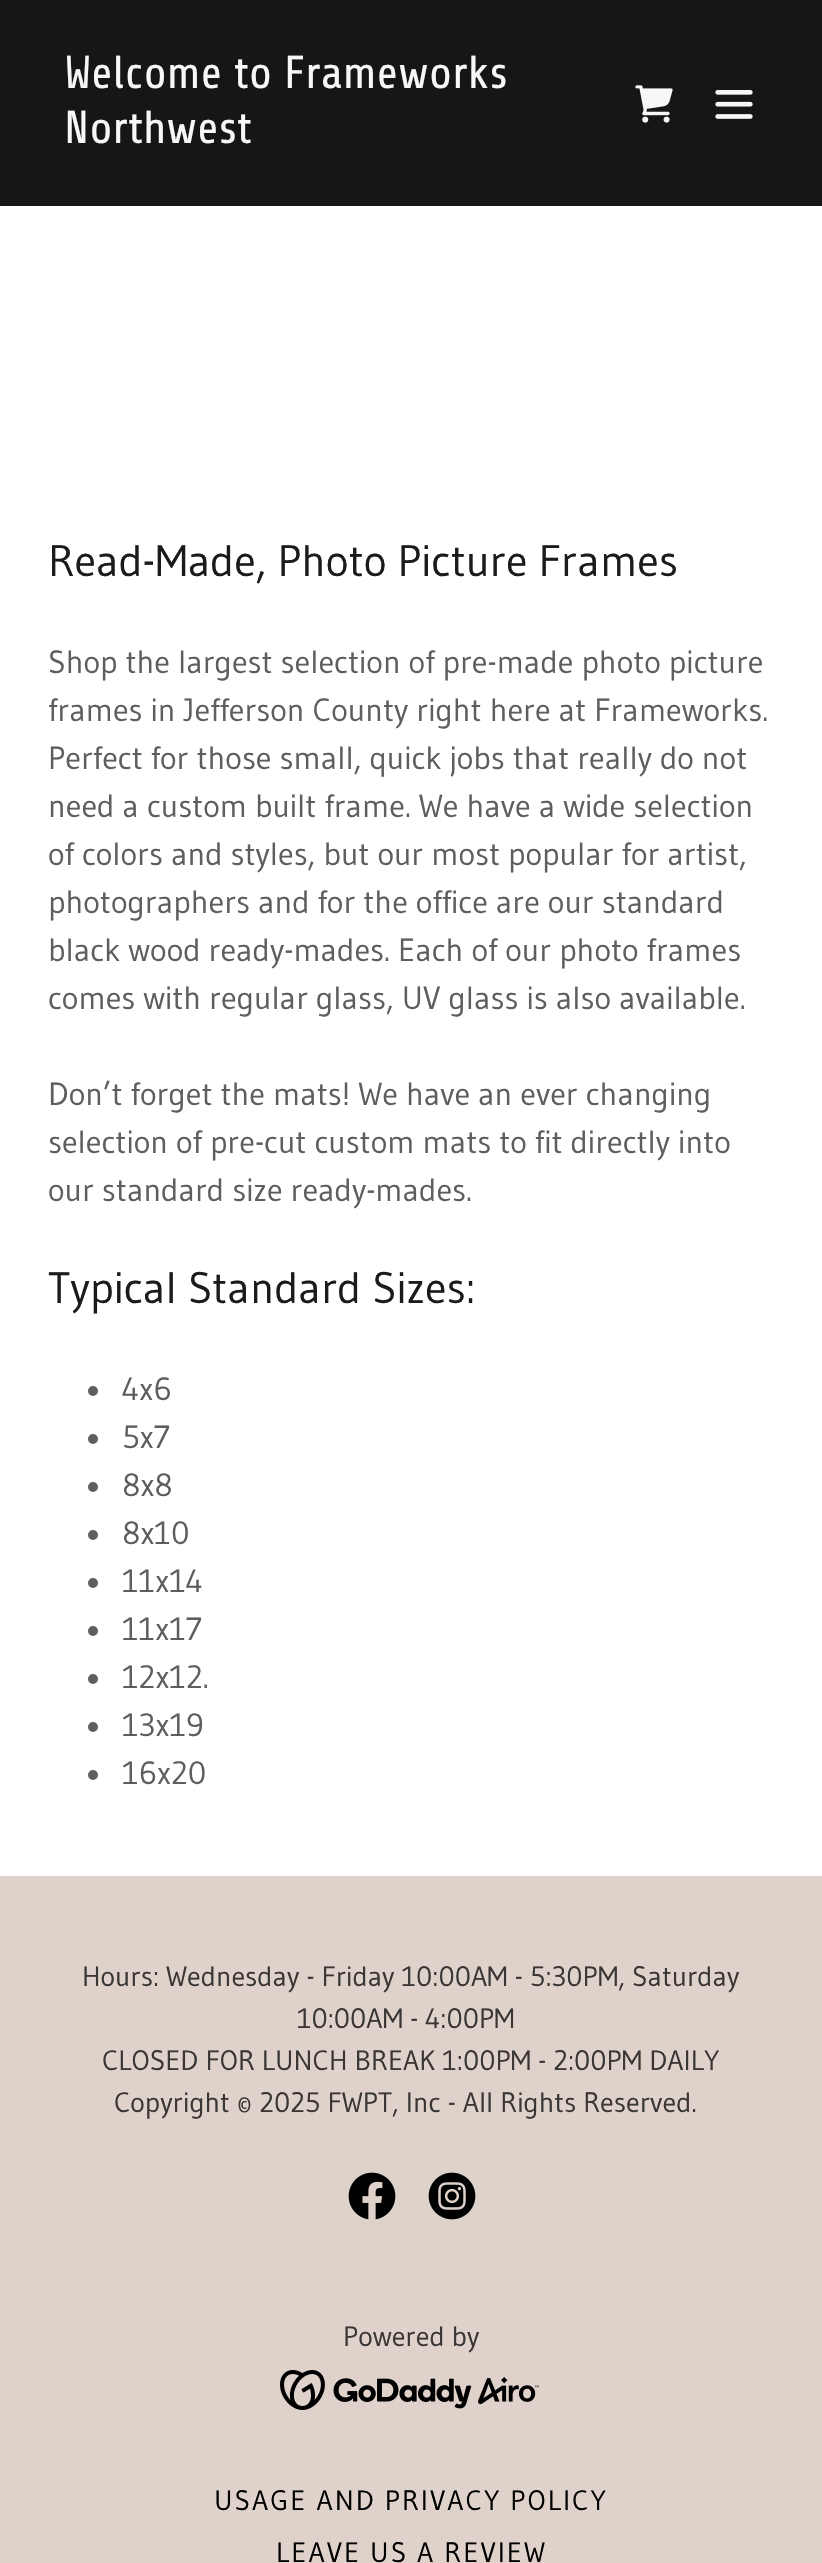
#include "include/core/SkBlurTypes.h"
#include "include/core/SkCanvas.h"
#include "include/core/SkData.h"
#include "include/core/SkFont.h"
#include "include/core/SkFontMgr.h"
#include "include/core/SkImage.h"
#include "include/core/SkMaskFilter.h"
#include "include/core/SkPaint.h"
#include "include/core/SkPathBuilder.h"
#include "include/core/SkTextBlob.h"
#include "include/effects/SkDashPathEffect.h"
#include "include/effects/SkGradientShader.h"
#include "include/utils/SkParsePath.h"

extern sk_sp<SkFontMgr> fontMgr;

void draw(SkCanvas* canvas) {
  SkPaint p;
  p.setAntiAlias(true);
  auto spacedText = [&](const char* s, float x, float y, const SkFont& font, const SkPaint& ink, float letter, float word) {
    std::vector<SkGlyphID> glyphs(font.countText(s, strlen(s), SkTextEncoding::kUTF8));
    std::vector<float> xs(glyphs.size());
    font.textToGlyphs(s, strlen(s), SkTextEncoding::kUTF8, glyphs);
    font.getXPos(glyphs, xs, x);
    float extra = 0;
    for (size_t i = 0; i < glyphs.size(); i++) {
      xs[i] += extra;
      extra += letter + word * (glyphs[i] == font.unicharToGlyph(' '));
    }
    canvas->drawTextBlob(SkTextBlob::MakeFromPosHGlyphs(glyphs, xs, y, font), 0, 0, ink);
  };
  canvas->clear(SkColorSetRGB(223, 210, 202));
  p.setColor(SkColorSetRGB(22, 22, 22));
  canvas->drawRect(SkRect::MakeLTRB(0, 0, 822, 206), p);
  canvas->drawImageRect(SkImages::DeferredFromEncodedData(SkData::MakeFromFileName("images/1.png")), SkRect::MakeLTRB(635, 85, 673, 123), SkSamplingOptions());
  canvas->drawImageRect(SkImages::DeferredFromEncodedData(SkData::MakeFromFileName("images/2.png")), SkRect::MakeLTRB(715, 90, 753, 119), SkSamplingOptions());
  p.setColor(SK_ColorWHITE);
  canvas->drawRect(SkRect::MakeLTRB(0, 206, 822, 1876), p);
  p.setColor(SkColorSetRGB(94, 94, 94));
  canvas->drawCircle(93, 1391, 5, p);
  canvas->drawCircle(93, 1439, 5, p);
  canvas->drawCircle(93, 1487, 5, p);
  canvas->drawCircle(93, 1535, 5, p);
  canvas->drawCircle(93, 1583, 5, p);
  canvas->drawCircle(93, 1631, 5, p);
  canvas->drawCircle(93, 1679, 5, p);
  canvas->drawCircle(93, 1727, 5, p);
  canvas->drawCircle(93, 1775, 5, p);
  canvas->drawImageRect(SkImages::DeferredFromEncodedData(SkData::MakeFromFileName("images/3.png")), SkRect::MakeLTRB(348, 2172, 396, 2220), SkSamplingOptions());
  canvas->drawImageRect(SkImages::DeferredFromEncodedData(SkData::MakeFromFileName("images/4.png")), SkRect::MakeLTRB(428, 2172, 476, 2220), SkSamplingOptions());
  canvas->drawImageRect(SkImages::DeferredFromEncodedData(SkData::MakeFromFileName("images/5.png")), SkRect::MakeLTRB(280, 2370, 539, 2410), SkSamplingOptions());
  SkFont font1(fontMgr->matchFamilyStyle("Share", SkFontStyle::Normal()), 46);
  font1.setSubpixel(true);
  p.setColor(SkColorSetRGB(247, 247, 247));
  canvas->drawString("Welcome to Frameworks", 64, 88, font1, p);
  canvas->drawString("Northwest", 64, 143, font1, p);
  SkFont font2(fontMgr->matchFamilyStyle("Gudea", SkFontStyle::Normal()), 44);
  font2.setSubpixel(true);
  p.setColor(SkColorSetRGB(27, 27, 27));
  canvas->drawString("Read-Made, Photo Picture Frames", 48, 576, font2, p);
  SkFont font3(fontMgr->matchFamilyStyle("Gudea", SkFontStyle::Normal()), 32);
  font3.setSubpixel(true);
  p.setColor(SkColorSetRGB(94, 94, 94));
  canvas->drawString("Shop the largest selection of pre-made photo picture", 48, 673, font3, p);
  canvas->drawString("frames in Jefferson County right here at Frameworks.", 48, 721, font3, p);
  canvas->drawString("Perfect for those small, quick jobs that really do not", 48, 769, font3, p);
  canvas->drawString("need a custom built frame. We have a wide selection", 48, 817, font3, p);
  canvas->drawString("of colors and styles, but our most popular for artist,", 48, 865, font3, p);
  canvas->drawString("photographers and for the office are our standard", 48, 913, font3, p);
  canvas->drawString("black wood ready-mades. Each of our photo frames", 48, 961, font3, p);
  canvas->drawString("comes with regular glass, UV glass is also available.", 48, 1009, font3, p);
  canvas->drawString("Don’t forget the mats! We have an ever changing", 48, 1105, font3, p);
  canvas->drawString("selection of pre-cut custom mats to fit directly into", 48, 1153, font3, p);
  canvas->drawString("our standard size ready-mades.", 48, 1201, font3, p);
  p.setColor(SkColorSetRGB(27, 27, 27));
  canvas->drawString("Typical Standard Sizes:", 48, 1303, font2, p);
  p.setColor(SkColorSetRGB(94, 94, 94));
  canvas->drawString("4x6", 122, 1400, font3, p);
  canvas->drawString("5x7", 122, 1448, font3, p);
  canvas->drawString("8x8", 122, 1496, font3, p);
  canvas->drawString("8x10", 122, 1544, font3, p);
  canvas->drawString("11x14", 122, 1592, font3, p);
  canvas->drawString("11x17", 122, 1640, font3, p);
  canvas->drawString("12x12.", 122, 1688, font3, p);
  canvas->drawString("13x19", 122, 1736, font3, p);
  canvas->drawString("16x20", 122, 1784, font3, p);
  SkFont font4(fontMgr->matchFamilyStyle("Gudea", SkFontStyle::Normal()), 28);
  font4.setSubpixel(true);
  p.setColor(SkColorSetRGB(57, 54, 53));
  canvas->drawString("Hours: Wednesday - Friday 10:00AM - 5:30PM, Saturday", 82, 1986, font4, p);
  canvas->drawString("10:00AM - 4:00PM", 297, 2028, font4, p);
  canvas->drawString("CLOSED FOR LUNCH BREAK 1:00PM - 2:00PM DAILY", 102, 2070, font4, p);
  canvas->drawString("Copyright © 2025 FWPT, Inc - All Rights Reserved.", 114, 2112, font4, p);
  canvas->drawString("Powered by", 343, 2346, font4, p);
  p.setColor(SK_ColorBLACK);
  spacedText("USAGE AND PRIVACY POLICY", 214, 2510, font4, p, 2, 0);
  spacedText("LEAVE US A REVIEW", 276, 2562, font4, p, 2, 0);
}
